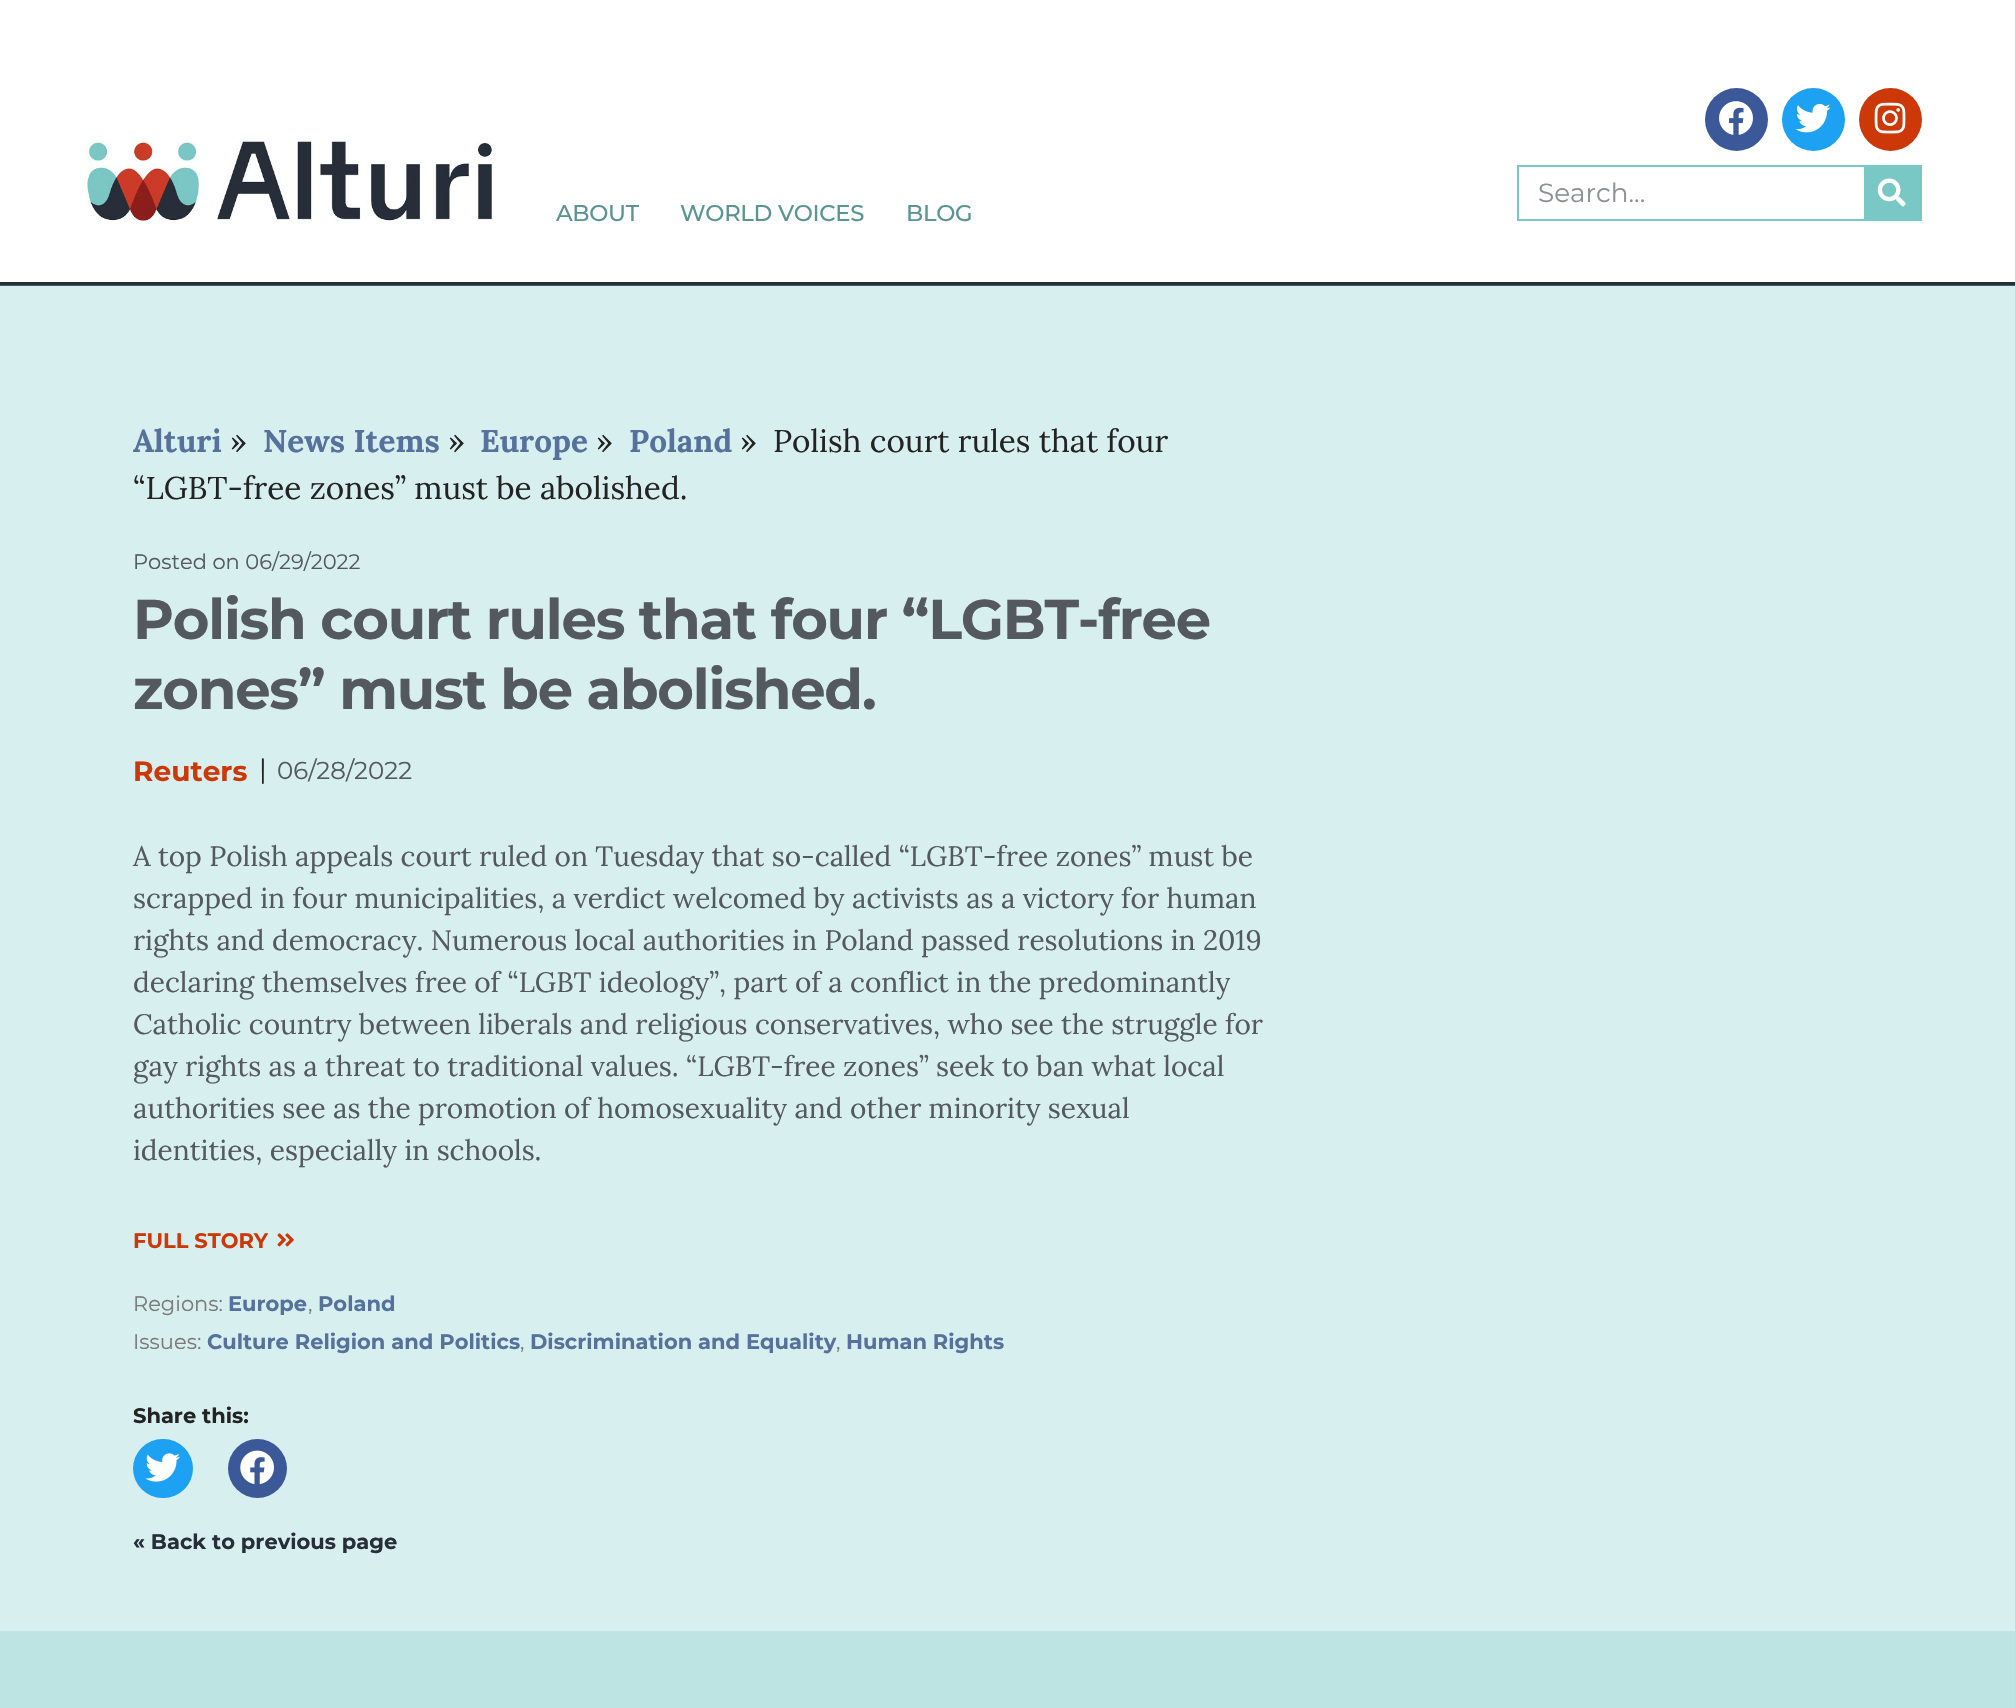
#include "include/core/SkBlurTypes.h"
#include "include/core/SkCanvas.h"
#include "include/core/SkData.h"
#include "include/core/SkFont.h"
#include "include/core/SkFontMgr.h"
#include "include/core/SkImage.h"
#include "include/core/SkMaskFilter.h"
#include "include/core/SkPaint.h"
#include "include/core/SkPathBuilder.h"
#include "include/core/SkTextBlob.h"
#include "include/effects/SkDashPathEffect.h"
#include "include/effects/SkGradientShader.h"
#include "include/utils/SkParsePath.h"

extern sk_sp<SkFontMgr> fontMgr;

void draw(SkCanvas* canvas) {
  SkPaint p;
  p.setAntiAlias(true);
  auto spacedText = [&](const char* s, float x, float y, const SkFont& font, const SkPaint& ink, float letter, float word) {
    std::vector<SkGlyphID> glyphs(font.countText(s, strlen(s), SkTextEncoding::kUTF8));
    std::vector<float> xs(glyphs.size());
    font.textToGlyphs(s, strlen(s), SkTextEncoding::kUTF8, glyphs);
    font.getXPos(glyphs, xs, x);
    float extra = 0;
    for (size_t i = 0; i < glyphs.size(); i++) {
      xs[i] += extra;
      extra += letter + word * (glyphs[i] == font.unicharToGlyph(' '));
    }
    canvas->drawTextBlob(SkTextBlob::MakeFromPosHGlyphs(glyphs, xs, y, font), 0, 0, ink);
  };
  canvas->clear(SK_ColorWHITE);
  p.setColor(SkColorSetRGB(215, 239, 238));
  canvas->drawRect(SkRect::MakeLTRB(0, 286, 2015, 1631), p);
  p.setColor(SkColorSetRGB(39, 46, 57));
  canvas->drawRect(SkRect::MakeLTRB(0, 282, 2015, 285), p);
  p.setColor(SkColorSetRGB(64, 92, 99));
  canvas->drawRect(SkRect::MakeLTRB(0, 285, 2015, 286), p);
  canvas->drawImageRect(SkImages::DeferredFromEncodedData(SkData::MakeFromFileName("images/1.png")), SkRect::MakeLTRB(87, 141, 492, 221), SkSamplingOptions());
  p.setColor(SkColorSetRGB(59, 89, 152));
  canvas->drawCircle(1736.5f, 119.5f, 31.5f, p);
  canvas->drawImageRect(SkImages::DeferredFromEncodedData(SkData::MakeFromFileName("images/2.png")), SkRect::MakeLTRB(1719, 101, 1753, 135), SkSamplingOptions());
  p.setColor(SkColorSetRGB(29, 161, 242));
  canvas->drawCircle(1813.5f, 119.5f, 31.5f, p);
  canvas->drawImageRect(SkImages::DeferredFromEncodedData(SkData::MakeFromFileName("images/3.png")), SkRect::MakeLTRB(1795, 103, 1831, 133), SkSamplingOptions());
  p.setColor(SkColorSetRGB(205, 56, 9));
  canvas->drawCircle(1890.5f, 119.5f, 31.5f, p);
  canvas->drawImageRect(SkImages::DeferredFromEncodedData(SkData::MakeFromFileName("images/4.png")), SkRect::MakeLTRB(1874, 102, 1906, 134), SkSamplingOptions());
  p.setStyle(SkPaint::kStroke_Style);
  p.setStrokeWidth(2);
  p.setColor(SkColorSetRGB(122, 200, 197));
  canvas->drawRect(SkRect::MakeLTRB(1518, 166, 1921, 220), p);
  p.setStyle(SkPaint::kFill_Style);
  canvas->drawRect(SkRect::MakeLTRB(1864, 167, 1920, 219), p);
  canvas->drawImageRect(SkImages::DeferredFromEncodedData(SkData::MakeFromFileName("images/5.png")), SkRect::MakeLTRB(1877, 178, 1906, 207), SkSamplingOptions());
  canvas->drawImageRect(SkImages::DeferredFromEncodedData(SkData::MakeFromFileName("images/6.png")), SkRect::MakeLTRB(277, 1233, 294, 1247), SkSamplingOptions());
  p.setColor(SkColorSetRGB(29, 161, 242));
  canvas->drawRoundRect(SkRect::MakeLTRB(133, 1439, 193, 1498), 29.5f, 29.5f, p);
  canvas->drawImageRect(SkImages::DeferredFromEncodedData(SkData::MakeFromFileName("images/7.png")), SkRect::MakeLTRB(145, 1453, 180, 1482), SkSamplingOptions());
  p.setColor(SkColorSetRGB(59, 89, 152));
  canvas->drawCircle(257.5f, 1468.5f, 29.5f, p);
  canvas->drawImageRect(SkImages::DeferredFromEncodedData(SkData::MakeFromFileName("images/8.png")), SkRect::MakeLTRB(240, 1450, 274, 1485), SkSamplingOptions());
  p.setColor(SkColorSetRGB(189, 228, 226));
  canvas->drawRect(SkRect::MakeLTRB(0, 1631, 2015, 1708), p);
  SkFont font1(fontMgr->matchFamilyStyle("Montserrat", SkFontStyle::Normal()), 26.25f);
  font1.setSubpixel(true);
  p.setColor(SkColorSetRGB(140, 143, 147));
  canvas->drawString("Search...", 1538, 202, font1, p);
  SkFont font2(fontMgr->matchFamilyStyle("Montserrat", SkFontStyle(500, SkFontStyle::kNormal_Width, SkFontStyle::kUpright_Slant)), 22.75f);
  font2.setSubpixel(true);
  p.setColor(SkColorSetRGB(91, 149, 147));
  spacedText("ABOUT", 556, 221, font2, p, -0.3f, 0);
  spacedText("WORLD VOICES", 680, 221, font2, p, -0.3f, 0);
  spacedText("BLOG", 906, 221, font2, p, -0.3f, 0);
  SkFont font3(fontMgr->matchFamilyStyle("Lora", SkFontStyle::Bold()), 31.5f);
  font3.setSubpixel(true);
  p.setColor(SkColorSetRGB(85, 113, 156));
  canvas->drawString("Alturi", 133, 452, font3, p);
  SkFont font4(fontMgr->matchFamilyStyle("Lora", SkFontStyle::Normal()), 31.5f);
  font4.setSubpixel(true);
  p.setColor(SkColorSetRGB(35, 35, 35));
  canvas->drawString("»", 230, 452, font4, p);
  p.setColor(SkColorSetRGB(85, 113, 156));
  canvas->drawString("News Items", 263, 452, font3, p);
  p.setColor(SkColorSetRGB(35, 35, 35));
  canvas->drawString("»", 448, 452, font4, p);
  p.setColor(SkColorSetRGB(85, 113, 156));
  canvas->drawString("Europe", 480, 452, font3, p);
  p.setColor(SkColorSetRGB(35, 35, 35));
  canvas->drawString("»", 596, 452, font4, p);
  p.setColor(SkColorSetRGB(85, 113, 156));
  canvas->drawString("Poland", 629, 452, font3, p);
  p.setColor(SkColorSetRGB(35, 35, 35));
  canvas->drawString("»", 740, 452, font4, p);
  canvas->drawString("Polish court rules that four", 773, 452, font4, p);
  canvas->drawString("“LGBT-free zones” must be abolished.", 133, 499, font4, p);
  SkFont font5(fontMgr->matchFamilyStyle("Montserrat", SkFontStyle::Normal()), 21);
  font5.setSubpixel(true);
  p.setColor(SkColorSetRGB(84, 89, 95));
  canvas->drawString("Posted on 06/29/2022", 133, 569, font5, p);
  SkFont font6(fontMgr->matchFamilyStyle("Montserrat", SkFontStyle::Bold()), 56);
  font6.setSubpixel(true);
  spacedText("Polish court rules that four “LGBT-free", 133, 639, font6, p, -1.2f, 0);
  spacedText("zones” must be abolished.", 133, 709, font6, p, -1.2f, 0);
  SkFont font7(fontMgr->matchFamilyStyle("Montserrat", SkFontStyle::Bold()), 28);
  font7.setSubpixel(true);
  p.setColor(SkColorSetRGB(205, 56, 9));
  canvas->drawString("Reuters", 133, 781, font7, p);
  SkFont font8(fontMgr->matchFamilyStyle("Lora", SkFontStyle::Normal()), 24.5f);
  font8.setSubpixel(true);
  p.setColor(SkColorSetRGB(35, 35, 35));
  canvas->drawString("|", 260, 777, font8, p);
  SkFont font9(fontMgr->matchFamilyStyle("Montserrat", SkFontStyle::Normal()), 24.5f);
  font9.setSubpixel(true);
  p.setColor(SkColorSetRGB(84, 89, 95));
  canvas->drawString("06/28/2022", 277, 779, font9, p);
  SkFont font10(fontMgr->matchFamilyStyle("Lora", SkFontStyle::Normal()), 28);
  font10.setSubpixel(true);
  canvas->drawString("A top Polish appeals court ruled on Tuesday that so-called “LGBT-free zones” must be", 133, 866, font10, p);
  canvas->drawString("scrapped in four municipalities, a verdict welcomed by activists as a victory for human", 133, 908, font10, p);
  canvas->drawString("rights and democracy. Numerous local authorities in Poland passed resolutions in 2019", 133, 950, font10, p);
  canvas->drawString("declaring themselves free of “LGBT ideology”, part of a conflict in the predominantly", 133, 992, font10, p);
  canvas->drawString("Catholic country between liberals and religious conservatives, who see the struggle for", 133, 1034, font10, p);
  canvas->drawString("gay rights as a threat to traditional values. “LGBT-free zones” seek to ban what local", 133, 1076, font10, p);
  canvas->drawString("authorities see as the promotion of homosexuality and other minority sexual", 133, 1118, font10, p);
  canvas->drawString("identities, especially in schools.", 133, 1160, font10, p);
  SkFont font11(fontMgr->matchFamilyStyle("Montserrat", SkFontStyle::Bold()), 21);
  font11.setSubpixel(true);
  p.setColor(SkColorSetRGB(205, 56, 9));
  canvas->drawString("FULL STORY", 133, 1248, font11, p);
  p.setColor(SkColorSetRGB(122, 122, 122));
  canvas->drawString("Regions:", 133, 1311, font5, p);
  p.setColor(SkColorSetRGB(85, 113, 156));
  canvas->drawString("Europe", 228, 1311, font11, p);
  p.setColor(SkColorSetRGB(122, 122, 122));
  canvas->drawString(",", 308, 1311, font5, p);
  p.setColor(SkColorSetRGB(85, 113, 156));
  canvas->drawString("Poland", 318, 1311, font11, p);
  p.setColor(SkColorSetRGB(122, 122, 122));
  canvas->drawString("Issues:", 133, 1349, font5, p);
  p.setColor(SkColorSetRGB(85, 113, 156));
  canvas->drawString("Culture Religion and Politics", 207, 1349, font11, p);
  p.setColor(SkColorSetRGB(122, 122, 122));
  canvas->drawString(",", 520, 1349, font5, p);
  p.setColor(SkColorSetRGB(85, 113, 156));
  canvas->drawString("Discrimination and Equality", 530, 1349, font11, p);
  p.setColor(SkColorSetRGB(122, 122, 122));
  canvas->drawString(",", 836, 1349, font5, p);
  p.setColor(SkColorSetRGB(85, 113, 156));
  canvas->drawString("Human Rights", 846, 1349, font11, p);
  p.setColor(SkColorSetRGB(35, 35, 35));
  canvas->drawString("Share this:", 133, 1423, font11, p);
  p.setColor(SkColorSetRGB(39, 46, 57));
  canvas->drawString("« Back to previous page", 133, 1549, font11, p);
}
